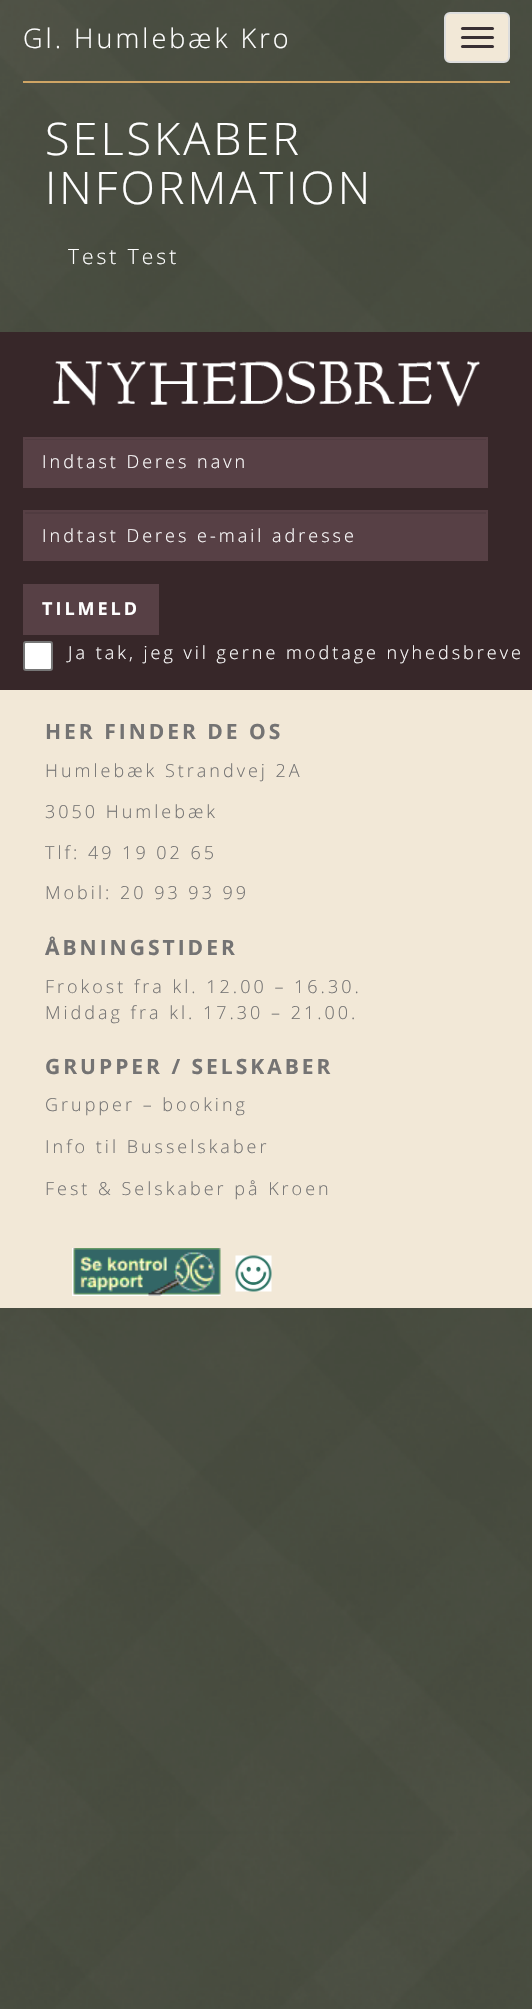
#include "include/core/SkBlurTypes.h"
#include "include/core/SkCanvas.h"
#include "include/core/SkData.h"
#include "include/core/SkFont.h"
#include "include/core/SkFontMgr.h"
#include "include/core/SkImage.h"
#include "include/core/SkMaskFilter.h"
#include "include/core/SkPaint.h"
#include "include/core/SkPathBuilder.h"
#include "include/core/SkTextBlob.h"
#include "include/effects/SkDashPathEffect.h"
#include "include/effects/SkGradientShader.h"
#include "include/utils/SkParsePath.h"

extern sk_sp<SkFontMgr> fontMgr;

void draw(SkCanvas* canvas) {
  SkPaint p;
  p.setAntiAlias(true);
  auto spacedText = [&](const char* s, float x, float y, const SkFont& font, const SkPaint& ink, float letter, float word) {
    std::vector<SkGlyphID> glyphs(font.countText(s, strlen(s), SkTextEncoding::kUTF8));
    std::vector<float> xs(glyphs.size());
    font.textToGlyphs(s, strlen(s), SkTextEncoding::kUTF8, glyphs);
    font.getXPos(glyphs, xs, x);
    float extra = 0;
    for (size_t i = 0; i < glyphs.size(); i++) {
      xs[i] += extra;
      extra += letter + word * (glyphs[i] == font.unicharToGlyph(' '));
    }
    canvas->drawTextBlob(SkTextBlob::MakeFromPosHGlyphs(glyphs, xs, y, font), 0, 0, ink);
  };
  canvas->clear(SK_ColorWHITE);
  canvas->drawImageRect(SkImages::DeferredFromEncodedData(SkData::MakeFromFileName("images/1.png")), SkRect::MakeLTRB(0, 0, 532, 2009), SkSamplingOptions());
  p.setColor(SkColorSetRGB(242, 232, 215));
  canvas->drawRoundRect(SkRect::MakeLTRB(445, 13, 509, 62), 5, 5, p);
  p.setStyle(SkPaint::kStroke_Style);
  p.setStrokeWidth(2);
  p.setColor(SkColorSetRGB(221, 221, 221));
  canvas->drawRoundRect(SkRect::MakeLTRB(445, 13, 509, 62), 5, 5, p);
  p.setStyle(SkPaint::kFill_Style);
  p.setColor(SkColorSetRGB(57, 47, 52));
  canvas->drawRoundRect(SkRect::MakeLTRB(461, 27, 494, 30), 1.5f, 1.5f, p);
  canvas->drawRoundRect(SkRect::MakeLTRB(461, 36, 494, 39), 1.5f, 1.5f, p);
  canvas->drawRoundRect(SkRect::MakeLTRB(461, 45, 494, 48), 1.5f, 1.5f, p);
  p.setColor(SkColorSetRGB(207, 165, 101));
  canvas->drawRect(SkRect::MakeLTRB(23, 81, 510, 83), p);
  p.setColor(SkColorSetRGB(55, 39, 41));
  canvas->drawRect(SkRect::MakeLTRB(0, 332, 532, 690), p);
  canvas->drawImageRect(SkImages::DeferredFromEncodedData(SkData::MakeFromFileName("images/2.png")), SkRect::MakeLTRB(52, 361, 480, 407), SkSamplingOptions());
  p.setColor(SkColorSetRGB(87, 64, 69));
  canvas->drawRect(SkRect::MakeLTRB(25, 440, 486, 486), p);
  p.setColor(SkColorSetRGB(80, 59, 64));
  canvas->drawRect(SkRect::MakeLTRB(24, 439, 486, 440), p);
  p.setStyle(SkPaint::kStroke_Style);
  p.setColor(SkColorSetRGB(87, 64, 69));
  canvas->drawRect(SkRect::MakeLTRB(24, 438, 487, 487), p);
  p.setStyle(SkPaint::kFill_Style);
  canvas->drawRect(SkRect::MakeLTRB(25, 514, 486, 559), p);
  p.setColor(SkColorSetRGB(80, 59, 64));
  canvas->drawRect(SkRect::MakeLTRB(24, 512, 486, 514), p);
  p.setStyle(SkPaint::kStroke_Style);
  p.setColor(SkColorSetRGB(87, 64, 69));
  canvas->drawRect(SkRect::MakeLTRB(24, 511, 487, 560), p);
  p.setStyle(SkPaint::kFill_Style);
  canvas->drawRect(SkRect::MakeLTRB(23, 584, 159, 635), p);
  p.setColor(SK_ColorWHITE);
  canvas->drawRoundRect(SkRect::MakeLTRB(24, 642, 52, 670), 2, 2, p);
  p.setStyle(SkPaint::kStroke_Style);
  p.setColor(SkColorSetRGB(118, 118, 118));
  canvas->drawRoundRect(SkRect::MakeLTRB(24, 642, 52, 670), 2, 2, p);
  p.setStyle(SkPaint::kFill_Style);
  p.setColor(SkColorSetRGB(242, 232, 215));
  canvas->drawRect(SkRect::MakeLTRB(0, 690, 532, 1308), p);
  canvas->drawImageRect(SkImages::DeferredFromEncodedData(SkData::MakeFromFileName("images/3.png")), SkRect::MakeLTRB(72, 1248, 221, 1296), SkSamplingOptions());
  canvas->drawImageRect(SkImages::DeferredFromEncodedData(SkData::MakeFromFileName("images/4.png")), SkRect::MakeLTRB(235, 1255, 272, 1292), SkSamplingOptions());
  SkFont font1(fontMgr->matchFamilyStyle("Open Sans", SkFontStyle(300, SkFontStyle::kNormal_Width, SkFontStyle::kUpright_Slant)), 27);
  font1.setSubpixel(true);
  p.setColor(SK_ColorWHITE);
  spacedText("Gl. Humlebæk Kro", 23, 48, font1, p, 3, 0);
  SkFont font2(fontMgr->matchFamilyStyle("Open Sans", SkFontStyle(300, SkFontStyle::kNormal_Width, SkFontStyle::kUpright_Slant)), 45);
  font2.setSubpixel(true);
  spacedText("SELSKABER", 45, 155, font2, p, 3, 0);
  spacedText("INFORMATION", 45, 204, font2, p, 3, 0);
  SkFont font3(fontMgr->matchFamilyStyle("Open Sans", SkFontStyle(300, SkFontStyle::kNormal_Width, SkFontStyle::kUpright_Slant)), 21);
  font3.setSubpixel(true);
  spacedText("Test Test", 68, 264, font3, p, 3, 0);
  SkFont font4(fontMgr->matchFamilyStyle("Open Sans", SkFontStyle(300, SkFontStyle::kNormal_Width, SkFontStyle::kUpright_Slant)), 18);
  font4.setSubpixel(true);
  spacedText("Indtast Deres navn", 42, 468, font4, p, 3, 0);
  spacedText("Indtast Deres e-mail adresse", 42, 542, font4, p, 3, 0);
  SkFont font5(fontMgr->matchFamilyStyle("Open Sans", SkFontStyle::Bold()), 18);
  font5.setSubpixel(true);
  spacedText("TILMELD", 42, 615, font5, p, 3, 0);
  spacedText("Ja tak, jeg vil gerne modtage nyhedsbreve", 68, 659, font4, p, 3, 0);
  SkFont font6(fontMgr->matchFamilyStyle("Open Sans", SkFontStyle::Bold()), 21);
  font6.setSubpixel(true);
  p.setColor(SkColorSetRGB(116, 115, 115));
  spacedText("HER FINDER DE OS", 45, 739, font6, p, 3, 0);
  spacedText("Humlebæk Strandvej 2A", 45, 777, font4, p, 3, 0);
  spacedText("3050 Humlebæk", 45, 818, font4, p, 3, 0);
  spacedText("Tlf: 49 19 02 65", 45, 859, font4, p, 3, 0);
  spacedText("Mobil: 20 93 93 99", 45, 899, font4, p, 3, 0);
  spacedText("ÅBNINGSTIDER", 45, 955, font6, p, 3, 0);
  spacedText("Frokost fra kl. 12.00 – 16.30.", 45, 993, font4, p, 3, 0);
  spacedText("Middag fra kl. 17.30 – 21.00.", 45, 1019, font4, p, 3, 0);
  spacedText("GRUPPER / SELSKABER", 45, 1074, font6, p, 3, 0);
  spacedText("Grupper – booking", 45, 1111, font4, p, 3, 0);
  spacedText("Info til Busselskaber", 45, 1153, font4, p, 3, 0);
  spacedText("Fest & Selskaber på Kroen", 45, 1195, font4, p, 3, 0);
}
